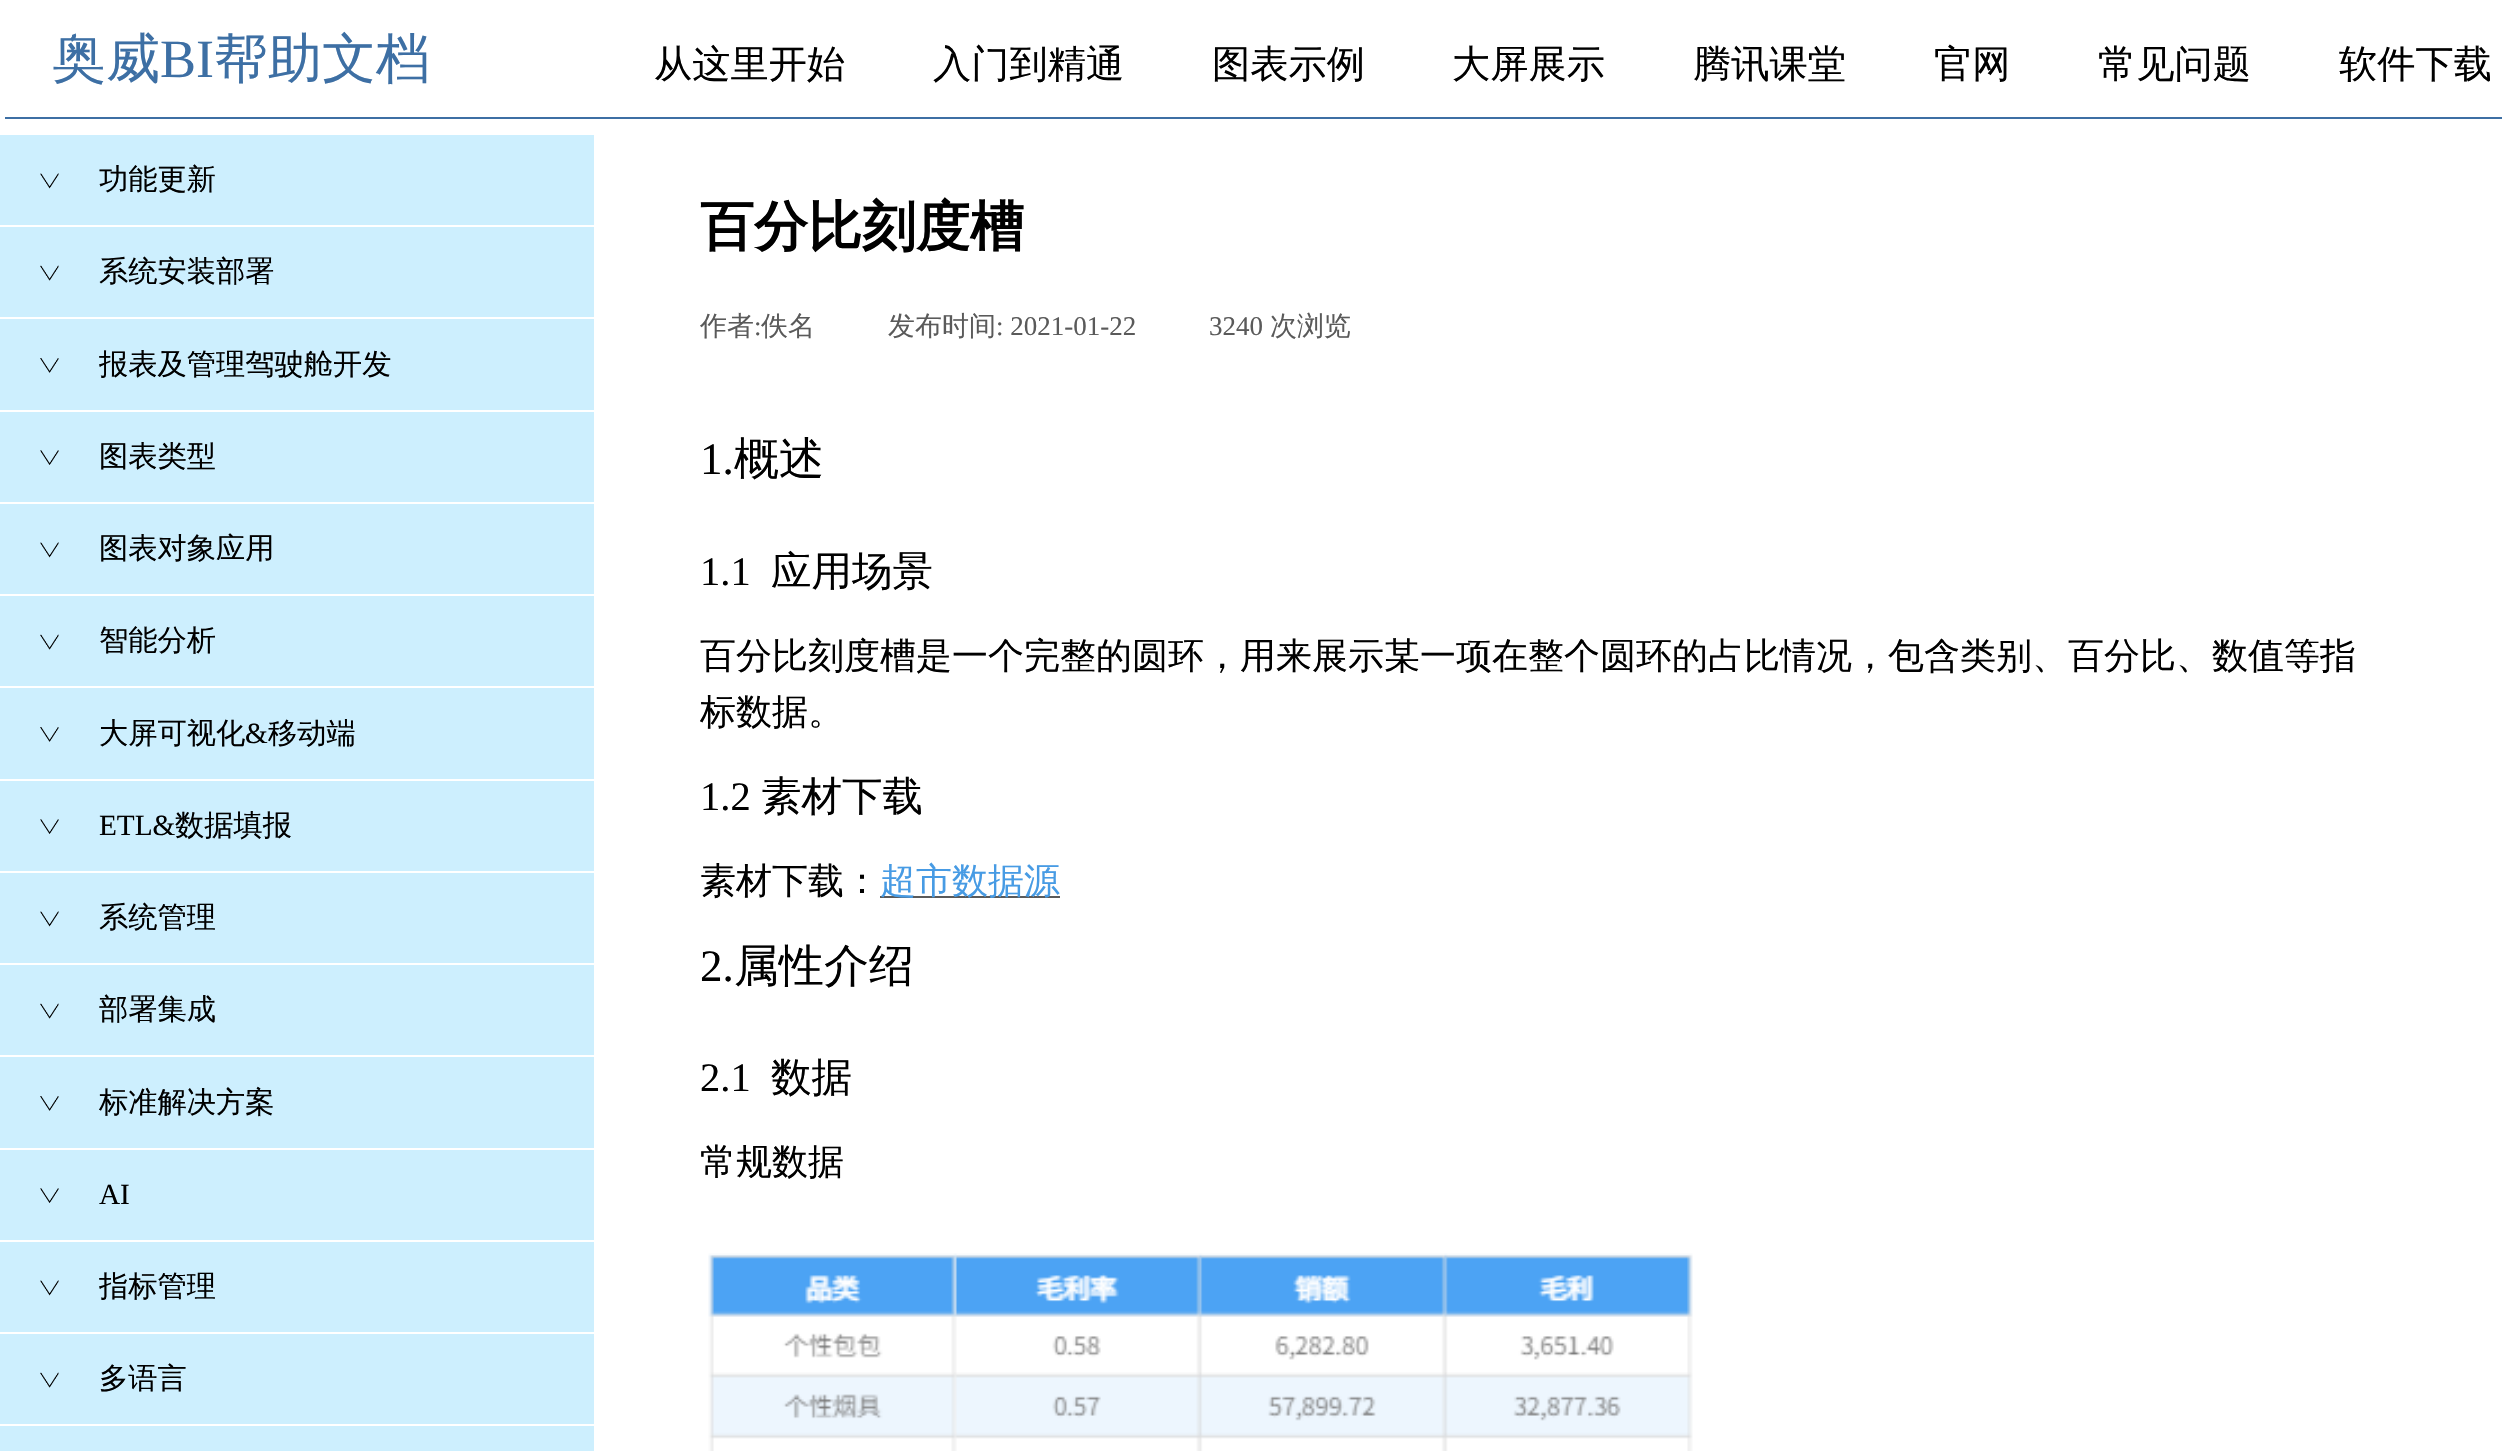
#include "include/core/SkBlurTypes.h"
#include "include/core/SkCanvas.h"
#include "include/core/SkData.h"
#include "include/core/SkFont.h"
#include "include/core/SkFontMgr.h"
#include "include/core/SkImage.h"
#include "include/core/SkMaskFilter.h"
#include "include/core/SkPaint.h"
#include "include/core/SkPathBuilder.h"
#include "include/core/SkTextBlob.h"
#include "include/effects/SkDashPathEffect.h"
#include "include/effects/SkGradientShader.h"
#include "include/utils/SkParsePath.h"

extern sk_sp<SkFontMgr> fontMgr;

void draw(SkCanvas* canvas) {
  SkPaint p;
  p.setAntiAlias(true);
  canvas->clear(SK_ColorWHITE);
  p.setColor(SkColorSetRGB(61, 111, 164));
  canvas->drawRect(SkRect::MakeLTRB(5, 117, 2502, 119), p);
  p.setColor(SkColorSetRGB(205, 239, 254));
  canvas->drawRect(SkRect::MakeLTRB(0, 135, 594, 1451), p);
  p.setColor(SK_ColorWHITE);
  canvas->drawRect(SkRect::MakeLTRB(0, 225, 594, 227), p);
  canvas->drawImageRect(SkImages::DeferredFromEncodedData(SkData::MakeFromFileName("images/1.png")), SkRect::MakeLTRB(40, 173, 59, 189), SkSamplingOptions());
  canvas->drawRect(SkRect::MakeLTRB(0, 317, 594, 319), p);
  canvas->drawImageRect(SkImages::DeferredFromEncodedData(SkData::MakeFromFileName("images/2.png")), SkRect::MakeLTRB(40, 265, 59, 281), SkSamplingOptions());
  canvas->drawRect(SkRect::MakeLTRB(0, 410, 594, 412), p);
  canvas->drawImageRect(SkImages::DeferredFromEncodedData(SkData::MakeFromFileName("images/3.png")), SkRect::MakeLTRB(40, 358, 59, 373), SkSamplingOptions());
  canvas->drawRect(SkRect::MakeLTRB(0, 502, 594, 504), p);
  canvas->drawImageRect(SkImages::DeferredFromEncodedData(SkData::MakeFromFileName("images/4.png")), SkRect::MakeLTRB(40, 450, 59, 465), SkSamplingOptions());
  canvas->drawRect(SkRect::MakeLTRB(0, 594, 594, 596), p);
  canvas->drawImageRect(SkImages::DeferredFromEncodedData(SkData::MakeFromFileName("images/1.png")), SkRect::MakeLTRB(40, 542, 59, 558), SkSamplingOptions());
  canvas->drawRect(SkRect::MakeLTRB(0, 686, 594, 688), p);
  canvas->drawImageRect(SkImages::DeferredFromEncodedData(SkData::MakeFromFileName("images/2.png")), SkRect::MakeLTRB(40, 634, 59, 650), SkSamplingOptions());
  canvas->drawRect(SkRect::MakeLTRB(0, 779, 594, 781), p);
  canvas->drawImageRect(SkImages::DeferredFromEncodedData(SkData::MakeFromFileName("images/3.png")), SkRect::MakeLTRB(40, 727, 59, 742), SkSamplingOptions());
  canvas->drawRect(SkRect::MakeLTRB(0, 871, 594, 873), p);
  canvas->drawImageRect(SkImages::DeferredFromEncodedData(SkData::MakeFromFileName("images/4.png")), SkRect::MakeLTRB(40, 819, 59, 834), SkSamplingOptions());
  canvas->drawRect(SkRect::MakeLTRB(0, 963, 594, 965), p);
  canvas->drawImageRect(SkImages::DeferredFromEncodedData(SkData::MakeFromFileName("images/1.png")), SkRect::MakeLTRB(40, 911, 59, 927), SkSamplingOptions());
  canvas->drawRect(SkRect::MakeLTRB(0, 1055, 594, 1057), p);
  canvas->drawImageRect(SkImages::DeferredFromEncodedData(SkData::MakeFromFileName("images/2.png")), SkRect::MakeLTRB(40, 1003, 59, 1019), SkSamplingOptions());
  canvas->drawRect(SkRect::MakeLTRB(0, 1148, 594, 1150), p);
  canvas->drawImageRect(SkImages::DeferredFromEncodedData(SkData::MakeFromFileName("images/3.png")), SkRect::MakeLTRB(40, 1096, 59, 1111), SkSamplingOptions());
  canvas->drawRect(SkRect::MakeLTRB(0, 1240, 594, 1242), p);
  canvas->drawImageRect(SkImages::DeferredFromEncodedData(SkData::MakeFromFileName("images/4.png")), SkRect::MakeLTRB(40, 1188, 59, 1203), SkSamplingOptions());
  canvas->drawRect(SkRect::MakeLTRB(0, 1332, 594, 1334), p);
  canvas->drawImageRect(SkImages::DeferredFromEncodedData(SkData::MakeFromFileName("images/1.png")), SkRect::MakeLTRB(40, 1280, 59, 1296), SkSamplingOptions());
  canvas->drawRect(SkRect::MakeLTRB(0, 1424, 594, 1426), p);
  canvas->drawImageRect(SkImages::DeferredFromEncodedData(SkData::MakeFromFileName("images/2.png")), SkRect::MakeLTRB(40, 1372, 59, 1388), SkSamplingOptions());
  p.setColor(SkColorSetRGB(90, 90, 90));
  canvas->drawRect(SkRect::MakeLTRB(880, 896, 1060, 898), p);
  canvas->drawImageRect(SkImages::DeferredFromEncodedData(SkData::MakeFromFileName("images/5.png")), SkRect::MakeLTRB(708, 1253, 1693, 1451), SkSamplingOptions());
  SkFont font1(fontMgr->matchFamilyStyle("WenQuanYi Zen Hei", SkFontStyle(500, SkFontStyle::kNormal_Width, SkFontStyle::kUpright_Slant)), 54);
  font1.setSubpixel(true);
  p.setColor(SkColorSetRGB(61, 111, 164));
  canvas->drawString("奥威", 52, 77, font1, p);
  SkFont font2(fontMgr->matchFamilyStyle("Liberation Serif", SkFontStyle::Normal()), 54);
  font2.setSubpixel(true);
  canvas->drawString("BI", 160, 77, font2, p);
  canvas->drawString("帮助文档", 214, 77, font1, p);
  SkFont font3(fontMgr->matchFamilyStyle("WenQuanYi Zen Hei", SkFontStyle(500, SkFontStyle::kNormal_Width, SkFontStyle::kUpright_Slant)), 38.25f);
  font3.setSubpixel(true);
  p.setColor(SK_ColorBLACK);
  canvas->drawString("从这里开始", 654, 77, font3, p);
  canvas->drawString("入门到精通", 933, 77, font3, p);
  canvas->drawString("图表示例", 1212, 77, font3, p);
  canvas->drawString("大屏展示", 1452, 77, font3, p);
  canvas->drawString("腾讯课堂", 1693, 77, font3, p);
  canvas->drawString("官网", 1934, 77, font3, p);
  canvas->drawString("常见问题", 2098, 77, font3, p);
  canvas->drawString("软件下载", 2339, 77, font3, p);
  SkFont font4(fontMgr->matchFamilyStyle("WenQuanYi Zen Hei", SkFontStyle(500, SkFontStyle::kNormal_Width, SkFontStyle::kUpright_Slant)), 29.25f);
  font4.setSubpixel(true);
  canvas->drawString("功能更新", 99, 189, font4, p);
  canvas->drawString("系统安装部署", 99, 281, font4, p);
  canvas->drawString("报表及管理驾驶舱开发", 99, 374, font4, p);
  canvas->drawString("图表类型", 99, 466, font4, p);
  canvas->drawString("图表对象应用", 99, 558, font4, p);
  canvas->drawString("智能分析", 99, 650, font4, p);
  canvas->drawString("大屏可视化", 99, 743, font4, p);
  SkFont font5(fontMgr->matchFamilyStyle("Liberation Serif", SkFontStyle::Normal()), 29.25f);
  font5.setSubpixel(true);
  canvas->drawString("&", 245, 743, font5, p);
  canvas->drawString("移动端", 268, 743, font4, p);
  canvas->drawString("ETL&", 99, 835, font5, p);
  canvas->drawString("数据填报", 175, 835, font4, p);
  canvas->drawString("系统管理", 99, 927, font4, p);
  canvas->drawString("部署集成", 99, 1019, font4, p);
  canvas->drawString("标准解决方案", 99, 1112, font4, p);
  canvas->drawString("AI", 99, 1204, font5, p);
  canvas->drawString("指标管理", 99, 1296, font4, p);
  canvas->drawString("多语言", 99, 1388, font4, p);
  SkFont font6(fontMgr->matchFamilyStyle("WenQuanYi Zen Hei", SkFontStyle::Bold()), 54);
  font6.setSubpixel(true);
  canvas->drawString("百分比刻度槽", 700, 245, font6, p);
  SkFont font7(fontMgr->matchFamilyStyle("WenQuanYi Zen Hei", SkFontStyle(500, SkFontStyle::kNormal_Width, SkFontStyle::kUpright_Slant)), 27);
  font7.setSubpixel(true);
  p.setColor(SkColorSetRGB(90, 90, 90));
  canvas->drawString("作者", 700, 335, font7, p);
  SkFont font8(fontMgr->matchFamilyStyle("Liberation Serif", SkFontStyle::Normal()), 27);
  font8.setSubpixel(true);
  canvas->drawString(":", 754, 335, font8, p);
  canvas->drawString("佚名", 761, 335, font7, p);
  canvas->drawString("发布时间", 888, 335, font7, p);
  canvas->drawString(": 2021-01-22", 996, 335, font8, p);
  canvas->drawString("3240", 1209, 335, font8, p);
  canvas->drawString("次浏览", 1270, 335, font7, p);
  SkFont font9(fontMgr->matchFamilyStyle("Liberation Serif", SkFontStyle::Normal()), 45);
  font9.setSubpixel(true);
  p.setColor(SK_ColorBLACK);
  canvas->drawString("1.", 700, 474, font9, p);
  SkFont font10(fontMgr->matchFamilyStyle("WenQuanYi Zen Hei", SkFontStyle(500, SkFontStyle::kNormal_Width, SkFontStyle::kUpright_Slant)), 45);
  font10.setSubpixel(true);
  canvas->drawString("概述", 734, 474, font10, p);
  SkFont font11(fontMgr->matchFamilyStyle("Liberation Serif", SkFontStyle::Normal()), 40.5f);
  font11.setSubpixel(true);
  canvas->drawString("1.1", 700, 585, font11, p);
  SkFont font12(fontMgr->matchFamilyStyle("WenQuanYi Zen Hei", SkFontStyle(500, SkFontStyle::kNormal_Width, SkFontStyle::kUpright_Slant)), 40.5f);
  font12.setSubpixel(true);
  canvas->drawString("应用场景", 771, 585, font12, p);
  SkFont font13(fontMgr->matchFamilyStyle("WenQuanYi Zen Hei", SkFontStyle(500, SkFontStyle::kNormal_Width, SkFontStyle::kUpright_Slant)), 36);
  font13.setSubpixel(true);
  canvas->drawString("百分比刻度槽是一个完整的圆环，用来展示某一项在整个圆环的占比情况，包含类别、百分比、数值等指", 700, 668, font13, p);
  canvas->drawString("标数据。", 700, 724, font13, p);
  canvas->drawString("1.2", 700, 810, font11, p);
  canvas->drawString("素材下载", 761, 810, font12, p);
  canvas->drawString("素材下载：", 700, 893, font13, p);
  p.setColor(SkColorSetRGB(71, 155, 228));
  canvas->drawString("超市数据源", 880, 893, font13, p);
  p.setColor(SK_ColorBLACK);
  canvas->drawString("2.", 700, 981, font9, p);
  canvas->drawString("属性介绍", 734, 981, font10, p);
  canvas->drawString("2.1", 700, 1091, font11, p);
  canvas->drawString("数据", 771, 1091, font12, p);
  canvas->drawString("常规数据", 700, 1174, font13, p);
}
